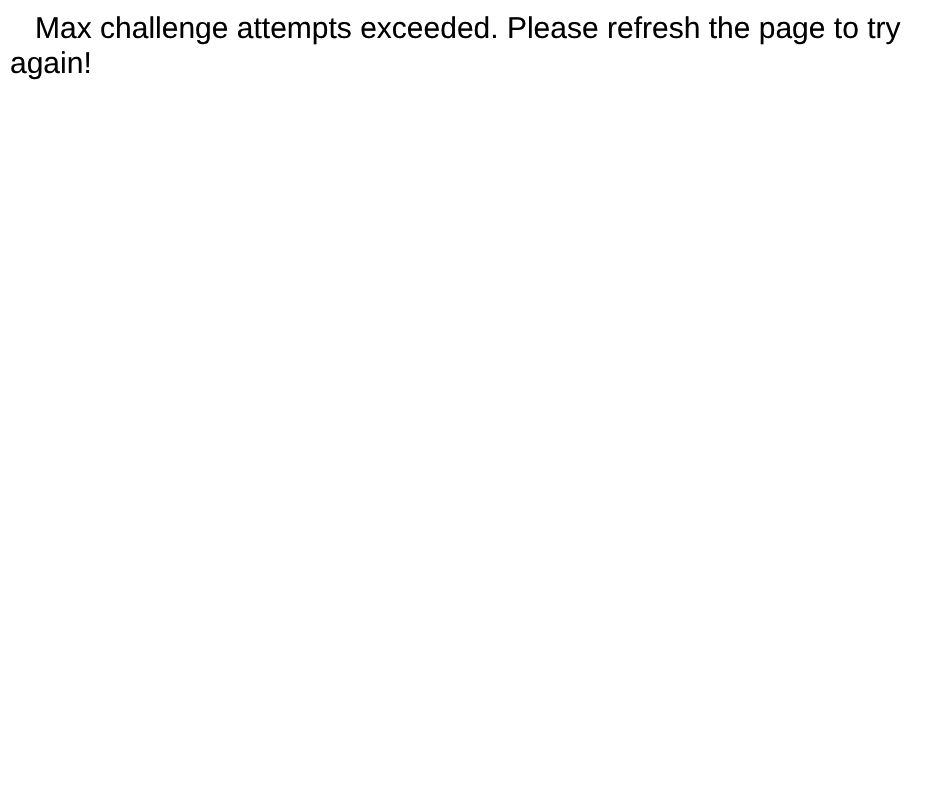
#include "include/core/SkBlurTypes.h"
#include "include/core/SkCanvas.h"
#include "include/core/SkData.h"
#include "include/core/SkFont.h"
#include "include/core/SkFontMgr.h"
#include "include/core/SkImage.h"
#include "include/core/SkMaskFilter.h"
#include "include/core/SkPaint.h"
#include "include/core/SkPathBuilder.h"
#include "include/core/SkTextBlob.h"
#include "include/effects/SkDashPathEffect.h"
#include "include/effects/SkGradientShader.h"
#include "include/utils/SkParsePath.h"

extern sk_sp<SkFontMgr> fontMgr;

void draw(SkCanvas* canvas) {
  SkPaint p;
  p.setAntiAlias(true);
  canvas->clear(SK_ColorWHITE);
  SkFont font1(fontMgr->matchFamilyStyle("Liberation Sans", SkFontStyle::Normal()), 30);
  font1.setSubpixel(true);
  p.setColor(SK_ColorBLACK);
  canvas->drawString("Max challenge attempts exceeded. Please refresh the page to try", 35, 38, font1, p);
  canvas->drawString("again!", 10, 73, font1, p);
}
